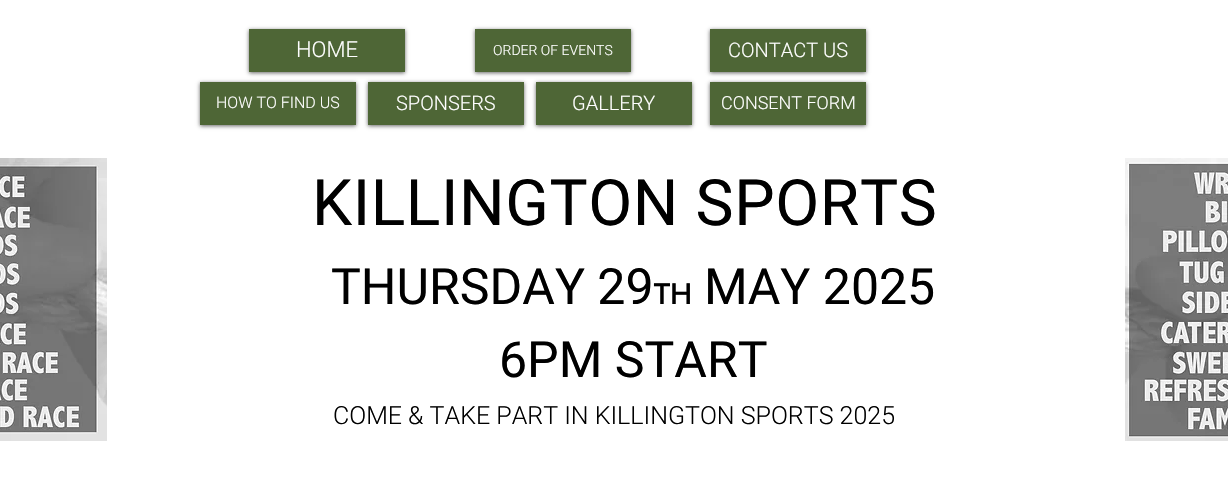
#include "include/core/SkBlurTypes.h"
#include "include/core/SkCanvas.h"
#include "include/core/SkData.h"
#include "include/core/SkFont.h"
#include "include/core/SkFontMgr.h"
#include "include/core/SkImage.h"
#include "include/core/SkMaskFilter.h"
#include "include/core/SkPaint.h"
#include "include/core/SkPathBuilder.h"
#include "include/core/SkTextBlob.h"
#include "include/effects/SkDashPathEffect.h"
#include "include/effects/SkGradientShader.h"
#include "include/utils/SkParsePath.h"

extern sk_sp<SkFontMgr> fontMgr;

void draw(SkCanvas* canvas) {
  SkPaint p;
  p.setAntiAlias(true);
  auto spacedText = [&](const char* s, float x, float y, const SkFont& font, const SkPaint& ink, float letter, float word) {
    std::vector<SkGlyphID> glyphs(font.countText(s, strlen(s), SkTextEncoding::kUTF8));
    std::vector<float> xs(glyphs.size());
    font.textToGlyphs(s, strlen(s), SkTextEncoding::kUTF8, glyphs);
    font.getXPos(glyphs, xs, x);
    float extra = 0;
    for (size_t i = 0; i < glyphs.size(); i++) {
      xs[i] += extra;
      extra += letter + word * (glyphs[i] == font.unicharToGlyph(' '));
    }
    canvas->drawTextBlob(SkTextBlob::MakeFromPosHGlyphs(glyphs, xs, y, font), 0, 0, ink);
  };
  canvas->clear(SK_ColorWHITE);
  p.setColor(SkColorSetARGB(153, 0, 0, 0));
  p.setMaskFilter(SkMaskFilter::MakeBlur(kNormal_SkBlurStyle, 2));
  canvas->drawRect(SkRect::MakeLTRB(249, 30, 405, 73), p);
  p.setMaskFilter(nullptr);
  p.setColor(SkColorSetRGB(78, 102, 54));
  canvas->drawRect(SkRect::MakeLTRB(249, 29, 405, 72), p);
  p.setColor(SkColorSetARGB(153, 0, 0, 0));
  p.setMaskFilter(SkMaskFilter::MakeBlur(kNormal_SkBlurStyle, 2));
  canvas->drawRect(SkRect::MakeLTRB(475, 30, 631, 73), p);
  p.setMaskFilter(nullptr);
  p.setColor(SkColorSetRGB(78, 102, 54));
  canvas->drawRect(SkRect::MakeLTRB(475, 29, 631, 72), p);
  p.setColor(SkColorSetARGB(153, 0, 0, 0));
  p.setMaskFilter(SkMaskFilter::MakeBlur(kNormal_SkBlurStyle, 2));
  canvas->drawRect(SkRect::MakeLTRB(710, 30, 866, 73), p);
  p.setMaskFilter(nullptr);
  p.setColor(SkColorSetRGB(78, 102, 54));
  canvas->drawRect(SkRect::MakeLTRB(710, 29, 866, 72), p);
  p.setColor(SkColorSetARGB(153, 0, 0, 0));
  p.setMaskFilter(SkMaskFilter::MakeBlur(kNormal_SkBlurStyle, 2));
  canvas->drawRect(SkRect::MakeLTRB(200, 83, 356, 126), p);
  p.setMaskFilter(nullptr);
  p.setColor(SkColorSetRGB(78, 102, 54));
  canvas->drawRect(SkRect::MakeLTRB(200, 82, 356, 125), p);
  p.setColor(SkColorSetARGB(153, 0, 0, 0));
  p.setMaskFilter(SkMaskFilter::MakeBlur(kNormal_SkBlurStyle, 2));
  canvas->drawRect(SkRect::MakeLTRB(368, 83, 524, 126), p);
  p.setMaskFilter(nullptr);
  p.setColor(SkColorSetRGB(78, 102, 54));
  canvas->drawRect(SkRect::MakeLTRB(368, 82, 524, 125), p);
  p.setColor(SkColorSetARGB(153, 0, 0, 0));
  p.setMaskFilter(SkMaskFilter::MakeBlur(kNormal_SkBlurStyle, 2));
  canvas->drawRect(SkRect::MakeLTRB(536, 83, 692, 126), p);
  p.setMaskFilter(nullptr);
  p.setColor(SkColorSetRGB(78, 102, 54));
  canvas->drawRect(SkRect::MakeLTRB(536, 82, 692, 125), p);
  p.setColor(SkColorSetARGB(153, 0, 0, 0));
  p.setMaskFilter(SkMaskFilter::MakeBlur(kNormal_SkBlurStyle, 2));
  canvas->drawRect(SkRect::MakeLTRB(710, 83, 866, 126), p);
  p.setMaskFilter(nullptr);
  p.setColor(SkColorSetRGB(78, 102, 54));
  canvas->drawRect(SkRect::MakeLTRB(710, 82, 866, 125), p);
  canvas->drawImageRect(SkImages::DeferredFromEncodedData(SkData::MakeFromFileName("images/1.png")), SkRect::MakeLTRB(0, 158, 107, 441), SkSamplingOptions());
  canvas->drawImageRect(SkImages::DeferredFromEncodedData(SkData::MakeFromFileName("images/2.png")), SkRect::MakeLTRB(1125, 158, 1228, 441), SkSamplingOptions());
  SkFont font1(fontMgr->matchFamilyStyle("Heebo", SkFontStyle(300, SkFontStyle::kNormal_Width, SkFontStyle::kUpright_Slant)), 22);
  font1.setSubpixel(true);
  p.setColor(SK_ColorWHITE);
  canvas->drawString("HOME", 296, 57, font1, p);
  SkFont font2(fontMgr->matchFamilyStyle("Heebo", SkFontStyle(300, SkFontStyle::kNormal_Width, SkFontStyle::kUpright_Slant)), 14);
  font2.setSubpixel(true);
  canvas->drawString("ORDER OF EVENTS", 493, 55, font2, p);
  SkFont font3(fontMgr->matchFamilyStyle("Heebo", SkFontStyle(300, SkFontStyle::kNormal_Width, SkFontStyle::kUpright_Slant)), 20);
  font3.setSubpixel(true);
  canvas->drawString("CONTACT US", 728, 57, font3, p);
  SkFont font4(fontMgr->matchFamilyStyle("Heebo", SkFontStyle(300, SkFontStyle::kNormal_Width, SkFontStyle::kUpright_Slant)), 16);
  font4.setSubpixel(true);
  canvas->drawString("HOW TO FIND US", 216, 108, font4, p);
  canvas->drawString("SPONSERS", 396, 110, font3, p);
  canvas->drawString("GALLERY", 572, 110, font3, p);
  SkFont font5(fontMgr->matchFamilyStyle("Heebo", SkFontStyle(300, SkFontStyle::kNormal_Width, SkFontStyle::kUpright_Slant)), 18);
  font5.setSubpixel(true);
  canvas->drawString("CONSENT FORM", 721, 109, font5, p);
  SkFont font6(fontMgr->matchFamilyStyle("Heebo", SkFontStyle::Normal()), 64);
  font6.setSubpixel(true);
  p.setColor(SK_ColorBLACK);
  spacedText("KILLINGTON SPORTS", 312, 225, font6, p, 0.6f, 0);
  SkFont font7(fontMgr->matchFamilyStyle("Heebo", SkFontStyle::Normal()), 50);
  font7.setSubpixel(true);
  canvas->drawString("THURSDAY 29", 331, 304, font7, p);
  SkFont font8(fontMgr->matchFamilyStyle("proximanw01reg", SkFontStyle::Bold()), 30);
  font8.setSubpixel(true);
  canvas->drawString("TH", 653, 304, font8, p);
  canvas->drawString("MAY 2025", 704, 304, font7, p);
  canvas->drawString("6PM START", 499, 377, font7, p);
  SkFont font9(fontMgr->matchFamilyStyle("Heebo", SkFontStyle(300, SkFontStyle::kNormal_Width, SkFontStyle::kUpright_Slant)), 25);
  font9.setSubpixel(true);
  canvas->drawString("COME & TAKE PART IN KILLINGTON SPORTS 2025", 333, 424, font9, p);
}
